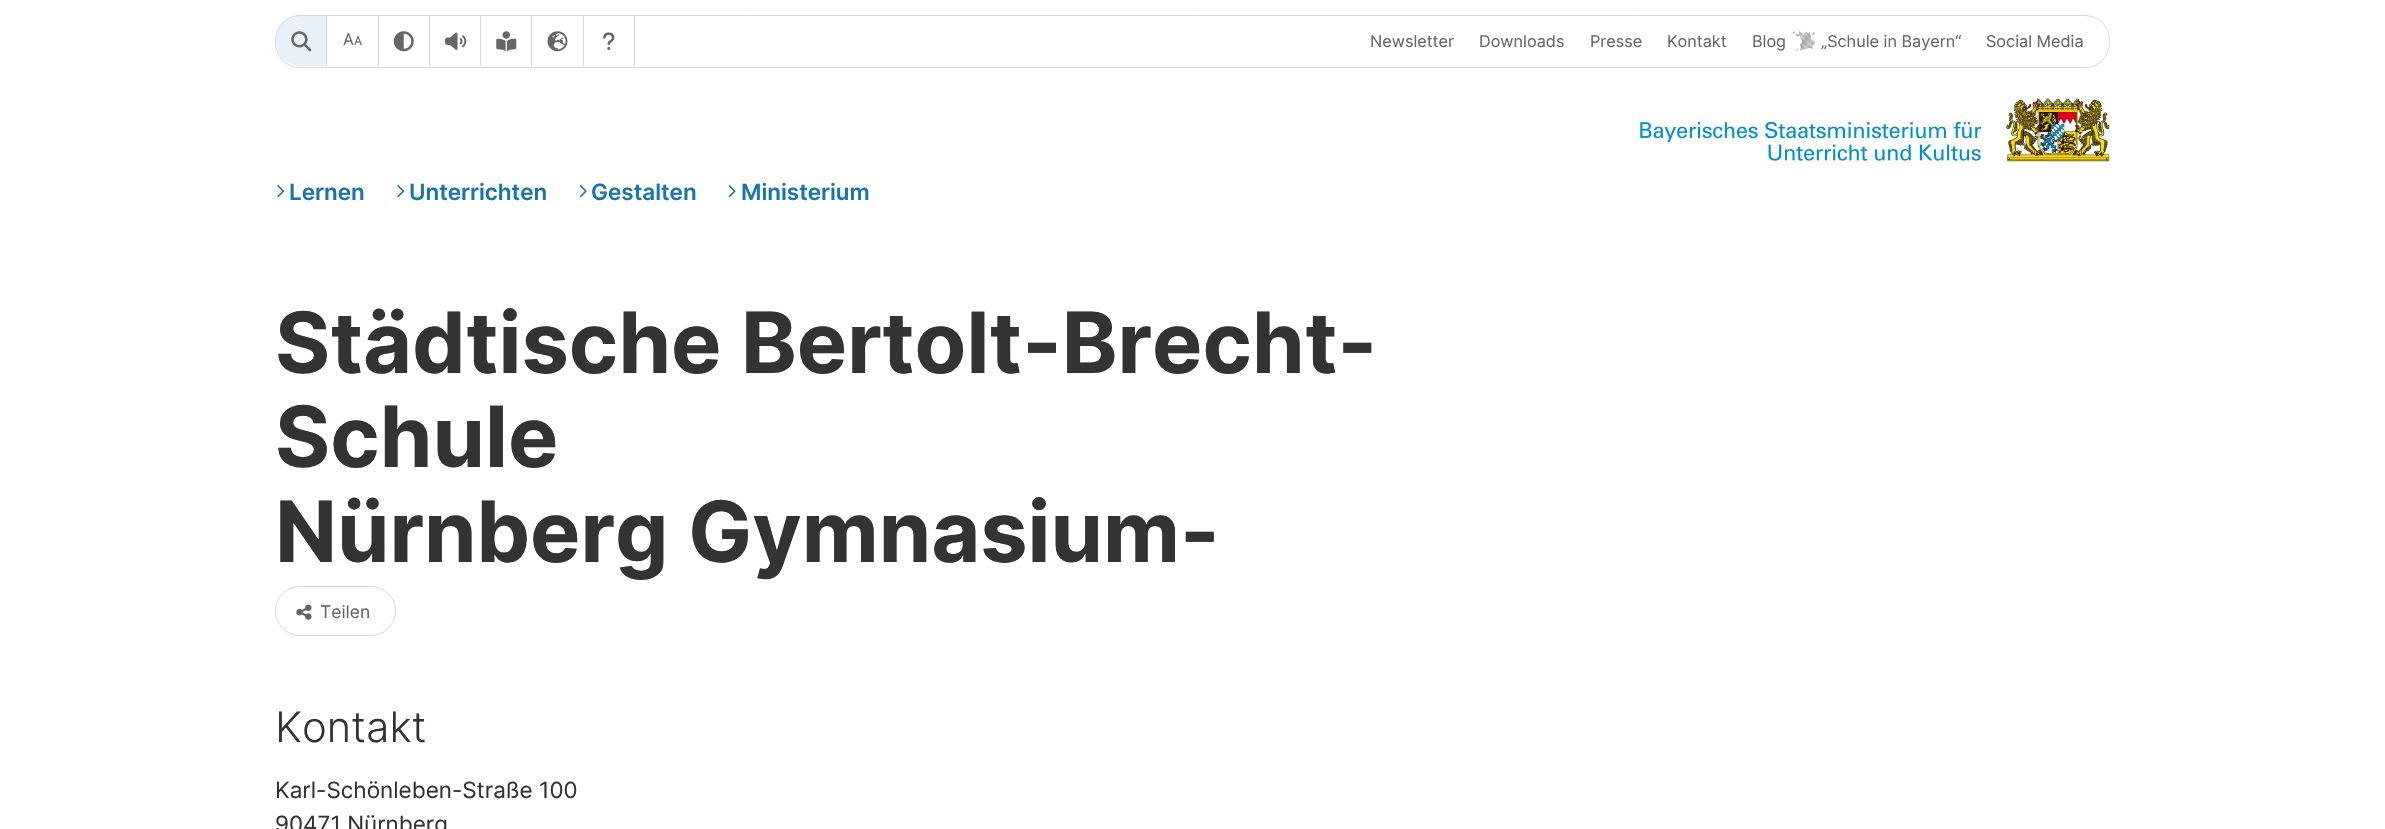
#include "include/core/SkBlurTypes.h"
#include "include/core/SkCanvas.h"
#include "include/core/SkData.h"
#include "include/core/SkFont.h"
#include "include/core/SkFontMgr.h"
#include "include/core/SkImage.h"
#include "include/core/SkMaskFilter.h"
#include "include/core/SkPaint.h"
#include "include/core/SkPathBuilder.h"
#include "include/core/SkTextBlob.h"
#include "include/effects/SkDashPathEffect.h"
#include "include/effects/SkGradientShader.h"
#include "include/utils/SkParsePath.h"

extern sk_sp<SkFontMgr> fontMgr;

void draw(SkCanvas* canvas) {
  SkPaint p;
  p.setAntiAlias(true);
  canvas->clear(SK_ColorWHITE);
  p.setStyle(SkPaint::kStroke_Style);
  p.setStrokeWidth(1);
  p.setColor(SkColorSetRGB(217, 217, 217));
  canvas->drawRoundRect(SkRect::MakeLTRB(275.5f, 15.5f, 2109.5f, 67.5f), 24.5f, 24.5f, p);
  p.setStyle(SkPaint::kFill_Style);
  canvas->drawRect(SkRect::MakeLTRB(326, 16, 327, 66), p);
  p.setColor(SkColorSetARGB(26, 24, 117, 178));
  canvas->drawPath(SkPathBuilder().moveTo(300, 16).lineTo(326, 16).lineTo(326, 66).lineTo(300, 66).cubicTo(286.5f, 66, 276, 55.5f, 276, 42).lineTo(276, 40).cubicTo(276, 26.5f, 286.5f, 16, 300, 16).close().detach(), p);
  canvas->drawImageRect(SkImages::DeferredFromEncodedData(SkData::MakeFromFileName("images/1.png")), SkRect::MakeLTRB(291, 31, 312, 52), SkSamplingOptions());
  p.setColor(SkColorSetRGB(217, 217, 217));
  canvas->drawRect(SkRect::MakeLTRB(378, 16, 379, 66), p);
  canvas->drawRect(SkRect::MakeLTRB(429, 16, 430, 66), p);
  canvas->drawImageRect(SkImages::DeferredFromEncodedData(SkData::MakeFromFileName("images/2.png")), SkRect::MakeLTRB(393, 31, 414, 52), SkSamplingOptions());
  canvas->drawRect(SkRect::MakeLTRB(480, 16, 481, 66), p);
  canvas->drawImageRect(SkImages::DeferredFromEncodedData(SkData::MakeFromFileName("images/3.png")), SkRect::MakeLTRB(445, 32, 467, 50), SkSamplingOptions());
  canvas->drawRect(SkRect::MakeLTRB(531, 16, 532, 66), p);
  canvas->drawImageRect(SkImages::DeferredFromEncodedData(SkData::MakeFromFileName("images/4.png")), SkRect::MakeLTRB(496, 31, 517, 52), SkSamplingOptions());
  canvas->drawRect(SkRect::MakeLTRB(583, 16, 584, 66), p);
  canvas->drawImageRect(SkImages::DeferredFromEncodedData(SkData::MakeFromFileName("images/5.png")), SkRect::MakeLTRB(547, 31, 568, 52), SkSamplingOptions());
  canvas->drawRect(SkRect::MakeLTRB(634, 16, 635, 66), p);
  canvas->drawImageRect(SkImages::DeferredFromEncodedData(SkData::MakeFromFileName("images/6.png")), SkRect::MakeLTRB(603, 32, 615, 50), SkSamplingOptions());
  canvas->drawImageRect(SkImages::DeferredFromEncodedData(SkData::MakeFromFileName("images/7.png")), SkRect::MakeLTRB(1793, 31, 1815, 51), SkSamplingOptions());
  canvas->drawImageRect(SkImages::DeferredFromEncodedData(SkData::MakeFromFileName("images/8.png")), SkRect::MakeLTRB(1640, 121, 1981, 161), SkSamplingOptions());
  canvas->drawImageRect(SkImages::DeferredFromEncodedData(SkData::MakeFromFileName("images/9.png")), SkRect::MakeLTRB(2006, 98, 2110, 162), SkSamplingOptions());
  canvas->drawImageRect(SkImages::DeferredFromEncodedData(SkData::MakeFromFileName("images/10.png")), SkRect::MakeLTRB(277, 185, 285, 198), SkSamplingOptions());
  canvas->drawImageRect(SkImages::DeferredFromEncodedData(SkData::MakeFromFileName("images/10.png")), SkRect::MakeLTRB(397, 185, 405, 198), SkSamplingOptions());
  canvas->drawImageRect(SkImages::DeferredFromEncodedData(SkData::MakeFromFileName("images/11.png")), SkRect::MakeLTRB(579, 185, 587, 198), SkSamplingOptions());
  canvas->drawImageRect(SkImages::DeferredFromEncodedData(SkData::MakeFromFileName("images/12.png")), SkRect::MakeLTRB(728, 185, 736, 198), SkSamplingOptions());
  p.setStyle(SkPaint::kStroke_Style);
  canvas->drawRoundRect(SkRect::MakeLTRB(275.5f, 586.5f, 395.5f, 635.5f), 24.5f, 24.5f, p);
  canvas->drawImageRect(SkImages::DeferredFromEncodedData(SkData::MakeFromFileName("images/13.png")), SkRect::MakeLTRB(296, 604, 312, 620), SkSamplingOptions());
  SkFont font1(fontMgr->matchFamilyStyle("Inter", SkFontStyle::Normal()), 16);
  font1.setSubpixel(true);
  p.setStyle(SkPaint::kFill_Style);
  p.setColor(SkColorSetRGB(102, 102, 102));
  canvas->drawString("A", 343, 45, font1, p);
  SkFont font2(fontMgr->matchFamilyStyle("Inter", SkFontStyle::Normal()), 12);
  font2.setSubpixel(true);
  canvas->drawString("A", 354, 45, font2, p);
  SkFont font3(fontMgr->matchFamilyStyle("Inter", SkFontStyle::Normal()), 16.25f);
  font3.setSubpixel(true);
  canvas->drawString("Newsletter", 1370, 47, font3, p);
  canvas->drawString("Downloads", 1479, 47, font3, p);
  canvas->drawString("Presse", 1590, 47, font3, p);
  canvas->drawString("Kontakt", 1667, 47, font3, p);
  canvas->drawString("Blog", 1752, 47, font3, p);
  canvas->drawString("„Schule in Bayern“", 1821, 47, font3, p);
  canvas->drawString("Social Media", 1986, 47, font3, p);
  SkFont font4(fontMgr->matchFamilyStyle("Inter", SkFontStyle(600, SkFontStyle::kNormal_Width, SkFontStyle::kUpright_Slant)), 22.5f);
  font4.setSubpixel(true);
  p.setColor(SkColorSetRGB(24, 117, 178));
  canvas->drawString("Lernen", 289, 200, font4, p);
  canvas->drawString("Unterrichten", 409, 200, font4, p);
  canvas->drawString("Gestalten", 591, 200, font4, p);
  canvas->drawString("Ministerium", 741, 200, font4, p);
  SkFont font5(fontMgr->matchFamilyStyle("Inter", SkFontStyle::Bold()), 84.4f);
  font5.setSubpixel(true);
  p.setColor(SkColorSetRGB(51, 51, 51));
  canvas->drawString("Städtische Bertolt-Brecht-", 275, 373, font5, p);
  canvas->drawString("Schule", 275, 467, font5, p);
  canvas->drawString("Nürnberg Gymnasium-", 275, 562, font5, p);
  SkFont font6(fontMgr->matchFamilyStyle("Inter", SkFontStyle::Normal()), 17.5f);
  font6.setSubpixel(true);
  p.setColor(SkColorSetRGB(102, 102, 102));
  canvas->drawString("Teilen", 320, 618, font6, p);
  SkFont font7(fontMgr->matchFamilyStyle("Inter", SkFontStyle(300, SkFontStyle::kNormal_Width, SkFontStyle::kUpright_Slant)), 42);
  font7.setSubpixel(true);
  p.setColor(SkColorSetRGB(51, 51, 51));
  canvas->drawString("Kontakt", 275, 742, font7, p);
  SkFont font8(fontMgr->matchFamilyStyle("Inter", SkFontStyle::Normal()), 22.5f);
  font8.setSubpixel(true);
  canvas->drawString("Karl-Schönleben-Straße 100", 275, 798, font8, p);
  canvas->drawString("90471 Nürnberg", 275, 832, font8, p);
}
